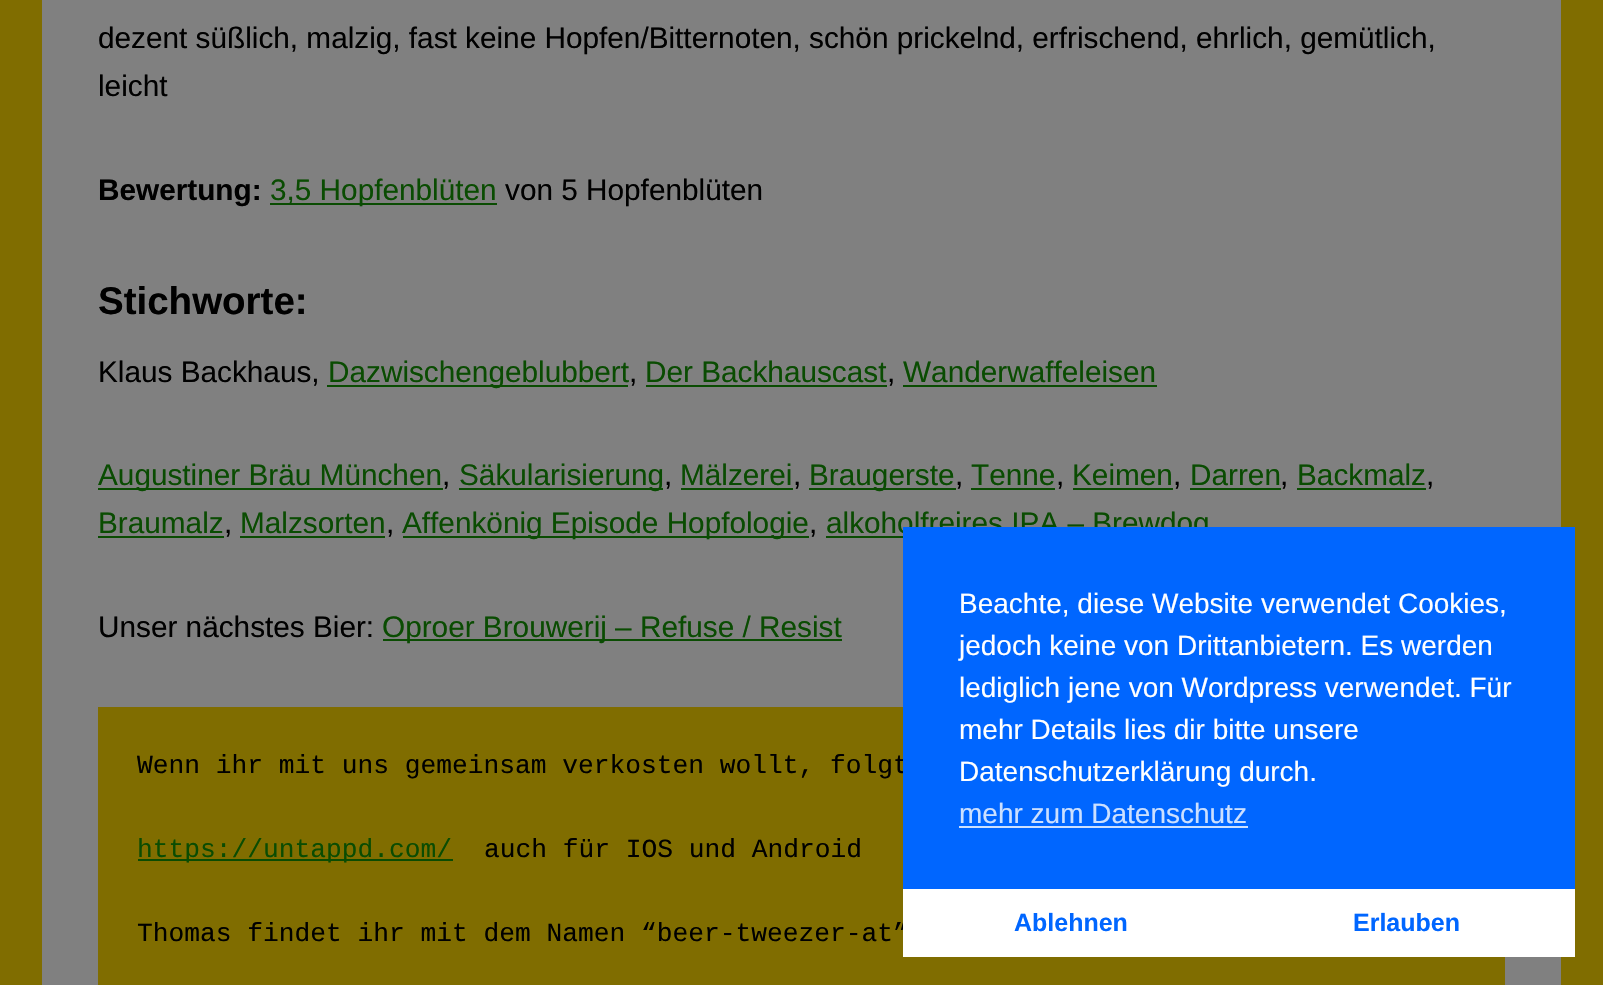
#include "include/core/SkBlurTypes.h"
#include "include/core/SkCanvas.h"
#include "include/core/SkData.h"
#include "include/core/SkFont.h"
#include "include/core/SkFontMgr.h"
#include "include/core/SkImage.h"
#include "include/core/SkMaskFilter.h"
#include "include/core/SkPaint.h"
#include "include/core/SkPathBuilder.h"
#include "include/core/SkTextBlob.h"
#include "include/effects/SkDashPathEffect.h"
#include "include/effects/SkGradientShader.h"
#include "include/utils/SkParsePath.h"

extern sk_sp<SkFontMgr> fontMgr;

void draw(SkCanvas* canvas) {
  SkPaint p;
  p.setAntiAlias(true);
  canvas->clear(SkColorSetRGB(128, 109, 0));
  p.setColor(SkColorSetRGB(128, 128, 128));
  canvas->drawRect(SkRect::MakeLTRB(42, 0, 1561, 985), p);
  p.setColor(SkColorSetRGB(10, 76, 2));
  canvas->drawRect(SkRect::MakeLTRB(270, 203, 497, 205), p);
  canvas->drawRect(SkRect::MakeLTRB(327, 385, 628, 387), p);
  canvas->drawRect(SkRect::MakeLTRB(646, 385, 887, 387), p);
  canvas->drawRect(SkRect::MakeLTRB(903, 385, 1157, 387), p);
  canvas->drawRect(SkRect::MakeLTRB(98, 488, 443, 490), p);
  canvas->drawRect(SkRect::MakeLTRB(459, 488, 663, 490), p);
  canvas->drawRect(SkRect::MakeLTRB(681, 488, 793, 490), p);
  canvas->drawRect(SkRect::MakeLTRB(809, 488, 956, 490), p);
  canvas->drawRect(SkRect::MakeLTRB(971, 488, 1055, 490), p);
  canvas->drawRect(SkRect::MakeLTRB(1073, 488, 1173, 490), p);
  canvas->drawRect(SkRect::MakeLTRB(1190, 488, 1281, 490), p);
  canvas->drawRect(SkRect::MakeLTRB(1297, 488, 1426, 490), p);
  canvas->drawRect(SkRect::MakeLTRB(98, 536, 224, 538), p);
  canvas->drawRect(SkRect::MakeLTRB(240, 536, 385, 538), p);
  canvas->drawRect(SkRect::MakeLTRB(403, 536, 809, 538), p);
  canvas->drawRect(SkRect::MakeLTRB(826, 536, 903, 538), p);
  canvas->drawRect(SkRect::MakeLTRB(383, 639, 842, 641), p);
  p.setColor(SkColorSetRGB(128, 109, 0));
  canvas->drawRect(SkRect::MakeLTRB(98, 707, 1505, 985), p);
  p.setColor(SkColorSetRGB(10, 76, 2));
  canvas->drawRect(SkRect::MakeLTRB(138, 859, 453, 861), p);
  SkFont font1(fontMgr->matchFamilyStyle("Liberation Sans", SkFontStyle::Normal()), 29.75f);
  font1.setSubpixel(true);
  p.setColor(SK_ColorBLACK);
  canvas->drawString("dezent süßlich, malzig, fast keine Hopfen/Bitternoten, schön prickelnd, erfrischend, ehrlich, gemütlich,", 98, 48, font1, p);
  canvas->drawString("leicht", 98, 96, font1, p);
  SkFont font2(fontMgr->matchFamilyStyle("Liberation Sans", SkFontStyle::Bold()), 29.75f);
  font2.setSubpixel(true);
  canvas->drawString("Bewertung:", 98, 200, font2, p);
  p.setColor(SkColorSetRGB(10, 76, 2));
  canvas->drawString("3,5 Hopfenblüten", 270, 200, font1, p);
  p.setColor(SK_ColorBLACK);
  canvas->drawString("von 5 Hopfenblüten", 505, 200, font1, p);
  SkFont font3(fontMgr->matchFamilyStyle("Liberation Sans", SkFontStyle::Bold()), 38.5f);
  font3.setSubpixel(true);
  canvas->drawString("Stichworte:", 98, 314, font3, p);
  canvas->drawString("Klaus Backhaus,", 98, 382, font1, p);
  p.setColor(SkColorSetRGB(10, 76, 2));
  canvas->drawString("Dazwischengeblubbert", 328, 382, font1, p);
  p.setColor(SK_ColorBLACK);
  canvas->drawString(",", 629, 382, font1, p);
  p.setColor(SkColorSetRGB(10, 76, 2));
  canvas->drawString("Der Backhauscast", 645, 382, font1, p);
  p.setColor(SK_ColorBLACK);
  canvas->drawString(",", 887, 382, font1, p);
  p.setColor(SkColorSetRGB(10, 76, 2));
  canvas->drawString("Wanderwaffeleisen", 903, 382, font1, p);
  canvas->drawString("Augustiner Bräu München", 98, 485, font1, p);
  p.setColor(SK_ColorBLACK);
  canvas->drawString(",", 442, 485, font1, p);
  p.setColor(SkColorSetRGB(10, 76, 2));
  canvas->drawString("Säkularisierung", 459, 485, font1, p);
  p.setColor(SK_ColorBLACK);
  canvas->drawString(",", 664, 485, font1, p);
  p.setColor(SkColorSetRGB(10, 76, 2));
  canvas->drawString("Mälzerei", 680, 485, font1, p);
  p.setColor(SK_ColorBLACK);
  canvas->drawString(",", 793, 485, font1, p);
  p.setColor(SkColorSetRGB(10, 76, 2));
  canvas->drawString("Braugerste", 809, 485, font1, p);
  p.setColor(SK_ColorBLACK);
  canvas->drawString(",", 955, 485, font1, p);
  p.setColor(SkColorSetRGB(10, 76, 2));
  canvas->drawString("Tenne", 971, 485, font1, p);
  p.setColor(SK_ColorBLACK);
  canvas->drawString(",", 1056, 485, font1, p);
  p.setColor(SkColorSetRGB(10, 76, 2));
  canvas->drawString("Keimen", 1072, 485, font1, p);
  p.setColor(SK_ColorBLACK);
  canvas->drawString(",", 1173, 485, font1, p);
  p.setColor(SkColorSetRGB(10, 76, 2));
  canvas->drawString("Darren", 1190, 485, font1, p);
  p.setColor(SK_ColorBLACK);
  canvas->drawString(",", 1280, 485, font1, p);
  p.setColor(SkColorSetRGB(10, 76, 2));
  canvas->drawString("Backmalz", 1297, 485, font1, p);
  p.setColor(SK_ColorBLACK);
  canvas->drawString(",", 1426, 485, font1, p);
  p.setColor(SkColorSetRGB(10, 76, 2));
  canvas->drawString("Braumalz", 98, 533, font1, p);
  p.setColor(SK_ColorBLACK);
  canvas->drawString(",", 224, 533, font1, p);
  p.setColor(SkColorSetRGB(10, 76, 2));
  canvas->drawString("Malzsorten", 240, 533, font1, p);
  p.setColor(SK_ColorBLACK);
  canvas->drawString(",", 386, 533, font1, p);
  p.setColor(SkColorSetRGB(10, 76, 2));
  canvas->drawString("Affenkönig Episode Hopfologie", 402, 533, font1, p);
  p.setColor(SK_ColorBLACK);
  canvas->drawString(",", 809, 533, font1, p);
  p.setColor(SkColorSetRGB(10, 76, 2));
  canvas->drawString("alkoholfreires IPA – Brewdog", 826, 533, font1, p);
  p.setColor(SK_ColorBLACK);
  canvas->drawString("Unser nächstes Bier:", 98, 637, font1, p);
  p.setColor(SkColorSetRGB(10, 76, 2));
  canvas->drawString("Oproer Brouwerij – Refuse / Resist", 382, 637, font1, p);
  SkFont font4(fontMgr->matchFamilyStyle("Liberation Mono", SkFontStyle::Normal()), 26.25f);
  font4.setSubpixel(true);
  p.setColor(SK_ColorBLACK);
  canvas->drawString("Wenn ihr mit uns gemeinsam verkosten wollt, folgt", 137, 773, font4, p);
  p.setColor(SkColorSetRGB(10, 76, 2));
  canvas->drawString("https://untappd.com/", 137, 857, font4, p);
  p.setColor(SK_ColorBLACK);
  canvas->drawString("auch für IOS und Android", 484, 857, font4, p);
  canvas->drawString("Thomas findet ihr mit dem Namen “beer-tweezer-at”", 137, 941, font4, p);
  p.setColor(SkColorSetRGB(0, 102, 255));
  canvas->drawRect(SkRect::MakeLTRB(903, 527, 1575, 889), p);
  SkFont font5(fontMgr->matchFamilyStyle("Liberation Sans", SkFontStyle::Normal()), 28);
  font5.setSubpixel(true);
  p.setColor(SK_ColorWHITE);
  canvas->drawString("Beachte, diese Website verwendet Cookies,", 959, 613, font5, p);
  canvas->drawString("jedoch keine von Drittanbietern. Es werden", 959, 655, font5, p);
  canvas->drawString("lediglich jene von Wordpress verwendet. Für", 959, 697, font5, p);
  canvas->drawString("mehr Details lies dir bitte unsere", 959, 739, font5, p);
  canvas->drawString("Datenschutzerklärung durch.", 959, 781, font5, p);
  p.setColor(SkColorSetRGB(204, 224, 255));
  canvas->drawString("mehr zum Datenschutz", 959, 823, font5, p);
  canvas->drawRect(SkRect::MakeLTRB(959, 826, 1248, 828), p);
  p.setColor(SK_ColorWHITE);
  canvas->drawRect(SkRect::MakeLTRB(903, 889, 1575, 957), p);
  SkFont font6(fontMgr->matchFamilyStyle("Liberation Sans", SkFontStyle::Bold()), 25);
  font6.setSubpixel(true);
  p.setColor(SkColorSetRGB(0, 102, 255));
  canvas->drawString("Ablehnen", 1014, 931, font6, p);
  canvas->drawString("Erlauben", 1353, 931, font6, p);
}
